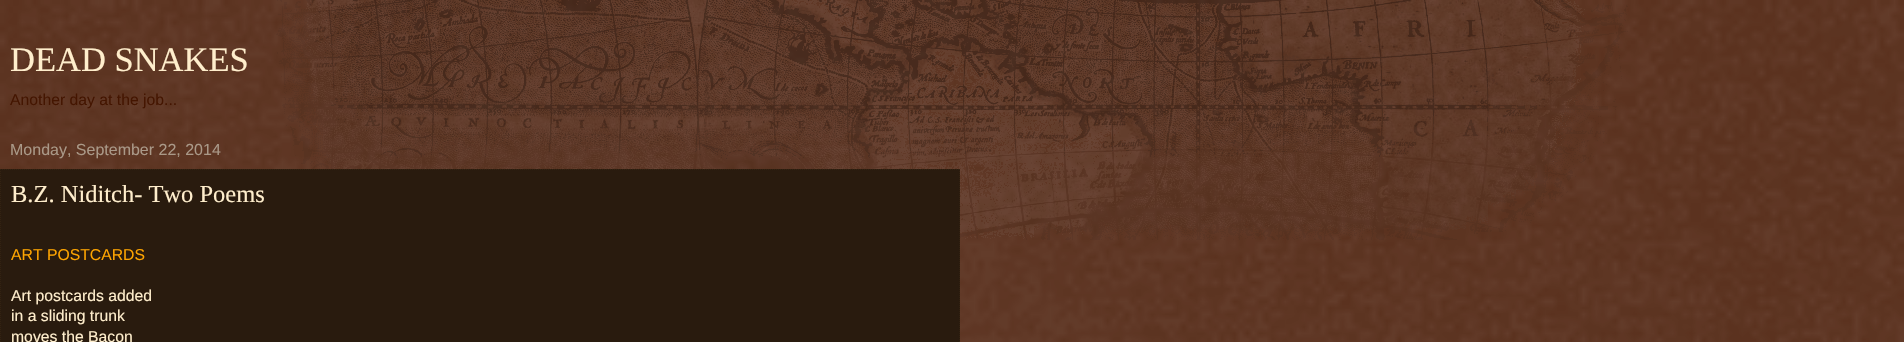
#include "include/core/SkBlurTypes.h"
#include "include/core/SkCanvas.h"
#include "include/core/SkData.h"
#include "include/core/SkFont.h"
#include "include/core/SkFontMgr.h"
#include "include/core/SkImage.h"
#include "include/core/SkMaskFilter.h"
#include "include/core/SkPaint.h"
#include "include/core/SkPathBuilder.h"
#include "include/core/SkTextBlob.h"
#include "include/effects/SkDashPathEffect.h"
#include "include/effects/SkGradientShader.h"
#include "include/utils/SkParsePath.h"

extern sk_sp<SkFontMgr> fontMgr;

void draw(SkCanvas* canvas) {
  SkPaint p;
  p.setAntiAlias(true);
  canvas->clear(SkColorSetRGB(68, 21, 0));
  canvas->drawImageRect(SkImages::DeferredFromEncodedData(SkData::MakeFromFileName("images/1.png")), SkRect::MakeLTRB(0, 0, 1904, 342), SkSamplingOptions());
  canvas->drawImageRect(SkImages::DeferredFromEncodedData(SkData::MakeFromFileName("images/2.png")), SkRect::MakeLTRB(276, 0, 1628, 240), SkSamplingOptions());
  p.setColor(SkColorSetRGB(41, 27, 14));
  canvas->drawRect(SkRect::MakeLTRB(0, 169, 960, 342), p);
  p.setStyle(SkPaint::kStroke_Style);
  p.setStrokeWidth(1);
  p.setColor(SkColorSetRGB(51, 34, 17));
  p.setPathEffect(SkDashPathEffect::Make({{1, 1}}, 0));
  canvas->drawPath(SkPathBuilder().moveTo(0, 169.5f).lineTo(960, 169.5f).detach(), p);
  p.setPathEffect(nullptr);
  p.setPathEffect(SkDashPathEffect::Make({{1, 1}}, 0));
  canvas->drawPath(SkPathBuilder().moveTo(959.5f, 169).lineTo(959.5f, 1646).detach(), p);
  p.setPathEffect(nullptr);
  p.setPathEffect(SkDashPathEffect::Make({{1, 1}}, 0));
  canvas->drawPath(SkPathBuilder().moveTo(0.5f, 169).lineTo(0.5f, 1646).detach(), p);
  p.setPathEffect(nullptr);
  SkFont font1(fontMgr->matchFamilyStyle("Liberation Serif", SkFontStyle::Normal()), 34.5f);
  font1.setSubpixel(true);
  p.setStyle(SkPaint::kFill_Style);
  p.setColor(SkColorSetRGB(255, 238, 204));
  canvas->drawString("DEAD SNAKES", 10, 71, font1, p);
  SkFont font2(fontMgr->matchFamilyStyle("Liberation Sans", SkFontStyle::Normal()), 15.75f);
  font2.setSubpixel(true);
  p.setColor(SkColorSetRGB(68, 21, 0));
  canvas->drawString("Another day at the job...", 10, 105, font2, p);
  SkFont font3(fontMgr->matchFamilyStyle("Liberation Sans", SkFontStyle::Normal()), 16);
  font3.setSubpixel(true);
  p.setColor(SkColorSetRGB(170, 153, 136));
  canvas->drawString("Monday, September 22, 2014", 10, 155, font3, p);
  SkFont font4(fontMgr->matchFamilyStyle("Liberation Serif", SkFontStyle::Normal()), 24.5f);
  font4.setSubpixel(true);
  p.setColor(SkColorSetRGB(255, 238, 204));
  canvas->drawString("B.Z. Niditch- Two Poems", 11, 202, font4, p);
  p.setColor(SkColorSetRGB(255, 165, 0));
  canvas->drawString("ART POSTCARDS", 11, 260, font2, p);
  p.setColor(SkColorSetRGB(255, 238, 204));
  canvas->drawString("Art postcards added", 11, 301, font2, p);
  canvas->drawString("in a sliding trunk", 11, 321, font2, p);
  canvas->drawString("moves the Bacon", 11, 342, font2, p);
}
